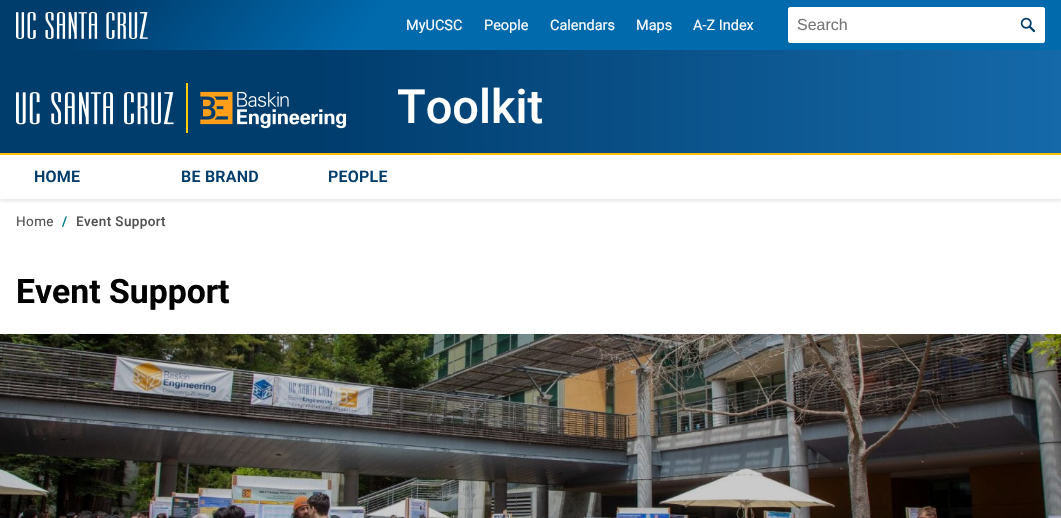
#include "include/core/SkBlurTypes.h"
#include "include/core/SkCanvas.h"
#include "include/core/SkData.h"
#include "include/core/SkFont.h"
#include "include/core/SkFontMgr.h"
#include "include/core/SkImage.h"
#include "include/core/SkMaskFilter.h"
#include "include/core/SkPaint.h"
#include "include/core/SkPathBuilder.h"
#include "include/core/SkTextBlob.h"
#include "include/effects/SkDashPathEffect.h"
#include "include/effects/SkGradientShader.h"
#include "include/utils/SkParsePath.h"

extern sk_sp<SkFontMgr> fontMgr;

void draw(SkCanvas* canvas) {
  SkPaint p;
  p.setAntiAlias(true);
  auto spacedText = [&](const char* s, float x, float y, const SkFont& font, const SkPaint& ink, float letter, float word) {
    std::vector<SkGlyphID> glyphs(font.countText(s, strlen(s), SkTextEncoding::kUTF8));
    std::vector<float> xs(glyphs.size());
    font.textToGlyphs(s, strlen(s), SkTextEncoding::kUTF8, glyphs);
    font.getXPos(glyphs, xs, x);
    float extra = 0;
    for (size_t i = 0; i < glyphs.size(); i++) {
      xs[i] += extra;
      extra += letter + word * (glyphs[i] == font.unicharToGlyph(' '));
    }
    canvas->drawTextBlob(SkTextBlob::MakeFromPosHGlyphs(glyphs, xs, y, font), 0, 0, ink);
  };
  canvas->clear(SK_ColorWHITE);
  p.setColor(SkColorSetRGB(0, 60, 108));
  canvas->drawRect(SkRect::MakeLTRB(0, 0, 16, 50), p);
  p.setColor(SkColorSetRGB(0, 106, 173));
  canvas->drawRect(SkRect::MakeLTRB(1045, 0, 1061, 50), p);
  {
    const SkColor colors[] = {SkColorSetRGB(0, 60, 108), SkColorSetRGB(0, 106, 173)};
    const float stops[] = {0.08f, 0.35f};
    const SkPoint ends[] = {{216, -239}, {845, 289}};
    p.setShader(SkGradientShader::MakeLinear(ends, colors, stops, 2, SkTileMode::kClamp));
    p.setAlpha(255);
  }
  canvas->drawRect(SkRect::MakeLTRB(16, 0, 1045, 50), p);
  canvas->drawImageRect(SkImages::DeferredFromEncodedData(SkData::MakeFromFileName("images/1.png")), SkRect::MakeLTRB(16, 12, 148, 39), SkSamplingOptions());
  p.setShader(nullptr);
  p.setColor(SK_ColorWHITE);
  canvas->drawRoundRect(SkRect::MakeLTRB(788.5f, 7.5f, 1044.5f, 42.5f), 1.5f, 1.5f, p);
  p.setStyle(SkPaint::kStroke_Style);
  p.setStrokeWidth(1);
  canvas->drawRoundRect(SkRect::MakeLTRB(788.5f, 7.5f, 1044.5f, 42.5f), 1.5f, 1.5f, p);
  canvas->drawImageRect(SkImages::DeferredFromEncodedData(SkData::MakeFromFileName("images/2.png")), SkRect::MakeLTRB(1020, 17, 1036, 33), SkSamplingOptions());
  canvas->save();
  canvas->clipRect(SkRect::MakeLTRB(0, 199, 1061, 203));
  p.setStyle(SkPaint::kFill_Style);
  p.setColor(SkColorSetARGB(26, 0, 0, 0));
  p.setMaskFilter(SkMaskFilter::MakeBlur(kNormal_SkBlurStyle, 2));
  canvas->drawRect(SkRect::MakeLTRB(0, 52, 1061, 201), p);
  p.setMaskFilter(nullptr);
  canvas->restore();
  {
    const SkColor colors[] = {SkColorSetRGB(0, 60, 108), SkColorSetRGB(21, 105, 169)};
    const float stops[] = {0.29f, 1};
    const SkPoint ends[] = {{0, 102}, {1061, 101}};
    p.setShader(SkGradientShader::MakeLinear(ends, colors, stops, 2, SkTileMode::kClamp));
    p.setAlpha(255);
  }
  canvas->drawRect(SkRect::MakeLTRB(0, 50, 1061, 153), p);
  canvas->drawImageRect(SkImages::DeferredFromEncodedData(SkData::MakeFromFileName("images/3.png")), SkRect::MakeLTRB(16, 83, 346, 133), SkSamplingOptions());
  p.setShader(nullptr);
  p.setColor(SkColorSetRGB(255, 191, 0));
  canvas->drawRect(SkRect::MakeLTRB(0, 153, 1061, 155), p);
  canvas->drawImageRect(SkImages::DeferredFromEncodedData(SkData::MakeFromFileName("images/4.png")), SkRect::MakeLTRB(0, 334, 1061, 518), SkSamplingOptions());
  SkFont font1(fontMgr->matchFamilyStyle("Roboto", SkFontStyle::Normal()), 14.5f);
  font1.setSubpixel(true);
  p.setColor(SK_ColorWHITE);
  canvas->drawString("MyUCSC", 406, 30, font1, p);
  canvas->drawString("People", 484, 30, font1, p);
  canvas->drawString("Calendars", 550, 30, font1, p);
  canvas->drawString("Maps", 636, 30, font1, p);
  canvas->drawString("A-Z Index", 693, 30, font1, p);
  SkFont font2(fontMgr->matchFamilyStyle("Liberation Sans", SkFontStyle::Normal()), 16);
  font2.setSubpixel(true);
  p.setColor(SkColorSetRGB(117, 117, 117));
  canvas->drawString("Search", 797, 30, font2, p);
  SkFont font3(fontMgr->matchFamilyStyle("Roboto", SkFontStyle(500, SkFontStyle::kNormal_Width, SkFontStyle::kUpright_Slant)), 47);
  font3.setSubpixel(true);
  p.setColor(SK_ColorWHITE);
  canvas->drawString("Toolkit", 397, 123, font3, p);
  SkFont font4(fontMgr->matchFamilyStyle("Roboto", SkFontStyle(600, SkFontStyle::kNormal_Width, SkFontStyle::kUpright_Slant)), 16);
  font4.setSubpixel(true);
  p.setColor(SkColorSetRGB(0, 60, 108));
  spacedText("HOME", 34, 182, font4, p, 0.25f, 0);
  spacedText("BE BRAND", 181, 182, font4, p, 0.25f, 0);
  spacedText("PEOPLE", 328, 182, font4, p, 0.25f, 0);
  SkFont font5(fontMgr->matchFamilyStyle("Roboto", SkFontStyle::Normal()), 13.5f);
  font5.setSubpixel(true);
  p.setColor(SkColorSetRGB(82, 82, 82));
  spacedText("Home", 16, 226, font5, p, 0.4f, 0);
  SkFont font6(fontMgr->matchFamilyStyle("Roboto", SkFontStyle(600, SkFontStyle::kNormal_Width, SkFontStyle::kUpright_Slant)), 13.5f);
  font6.setSubpixel(true);
  p.setColor(SkColorSetRGB(0, 121, 136));
  spacedText("/", 62, 226, font6, p, 0.4f, 0);
  SkFont font7(fontMgr->matchFamilyStyle("Roboto", SkFontStyle(500, SkFontStyle::kNormal_Width, SkFontStyle::kUpright_Slant)), 13.5f);
  font7.setSubpixel(true);
  p.setColor(SkColorSetRGB(82, 82, 82));
  spacedText("Event Support", 76, 226, font7, p, 0.4f, 0);
  SkFont font8(fontMgr->matchFamilyStyle("Roboto", SkFontStyle::Bold()), 33.75f);
  font8.setSubpixel(true);
  p.setColor(SK_ColorBLACK);
  canvas->drawString("Event Support", 16, 303, font8, p);
}
